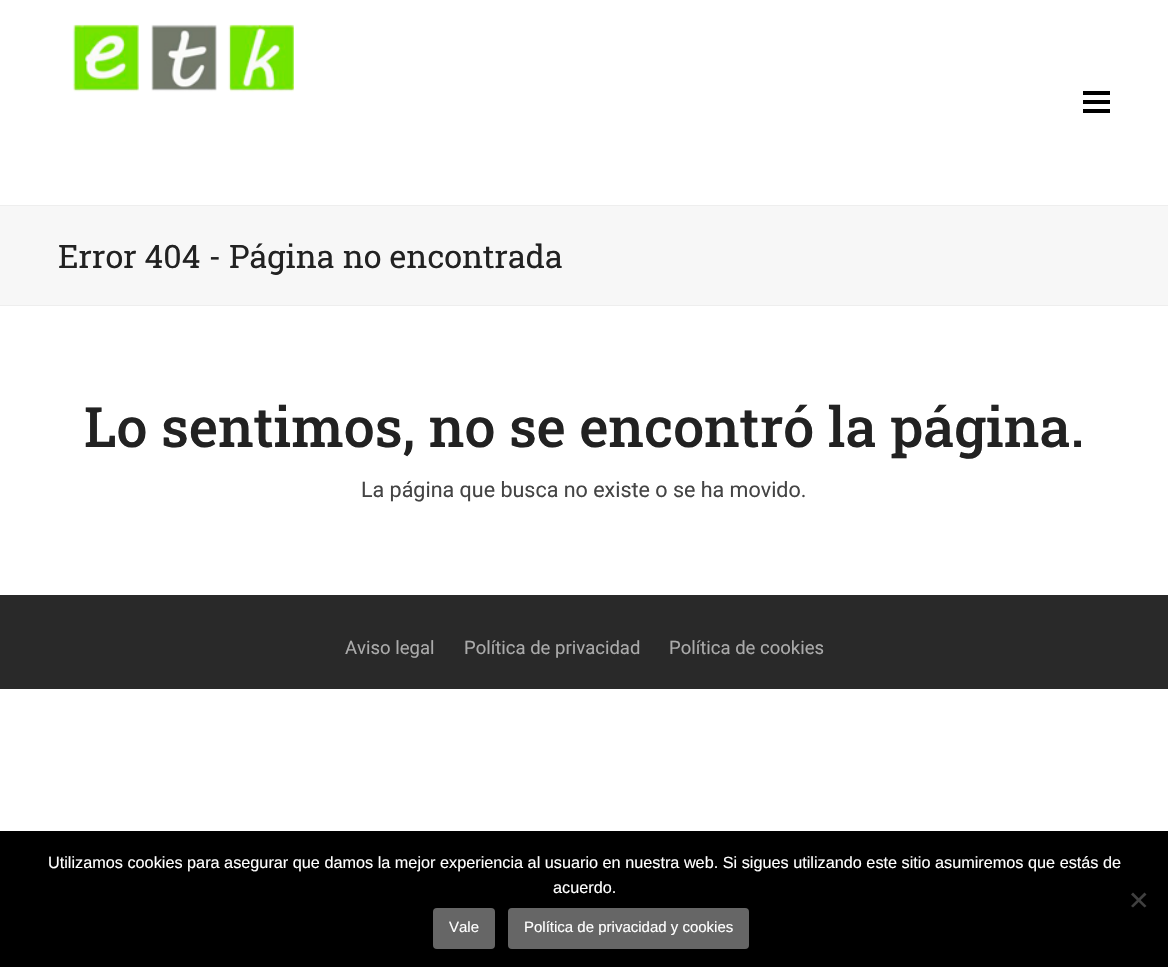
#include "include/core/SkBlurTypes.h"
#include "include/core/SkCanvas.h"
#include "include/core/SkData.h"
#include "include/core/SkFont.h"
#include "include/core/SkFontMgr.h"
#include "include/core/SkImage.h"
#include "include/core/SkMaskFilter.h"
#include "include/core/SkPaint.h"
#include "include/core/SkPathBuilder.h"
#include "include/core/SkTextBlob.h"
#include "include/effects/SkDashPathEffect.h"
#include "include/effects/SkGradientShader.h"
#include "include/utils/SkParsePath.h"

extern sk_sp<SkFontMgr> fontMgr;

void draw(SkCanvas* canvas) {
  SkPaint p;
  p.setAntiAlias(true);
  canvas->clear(SK_ColorWHITE);
  canvas->drawImageRect(SkImages::DeferredFromEncodedData(SkData::MakeFromFileName("images/1.png")), SkRect::MakeLTRB(72, 24, 294, 92), SkSamplingOptions());
  p.setColor(SK_ColorBLACK);
  canvas->drawRect(SkRect::MakeLTRB(1083, 100, 1110, 104), p);
  canvas->drawRect(SkRect::MakeLTRB(1083, 91, 1110, 95), p);
  canvas->drawRect(SkRect::MakeLTRB(1083, 109, 1110, 113), p);
  p.setColor(SkColorSetRGB(247, 247, 247));
  canvas->drawRect(SkRect::MakeLTRB(0, 206, 1168, 305), p);
  p.setColor(SkColorSetRGB(238, 238, 238));
  canvas->drawRect(SkRect::MakeLTRB(0, 205, 1168, 206), p);
  canvas->drawRect(SkRect::MakeLTRB(0, 305, 1168, 306), p);
  p.setColor(SkColorSetRGB(41, 41, 41));
  canvas->drawRect(SkRect::MakeLTRB(0, 595, 1168, 689), p);
  p.setColor(SK_ColorBLACK);
  canvas->drawRect(SkRect::MakeLTRB(0, 831, 1168, 967), p);
  p.setColor(SkColorSetRGB(64, 64, 64));
  canvas->drawPath(SkPathBuilder().moveTo(1144.5f, 892.5f).lineTo(1146.5f, 894.5f).lineTo(1133, 907.5f).lineTo(1131, 906).close().detach(), p);
  canvas->drawPath(SkPathBuilder().moveTo(1131, 894.5f).lineTo(1133, 892.5f).lineTo(1146.5f, 906).lineTo(1144.5f, 907.5f).close().detach(), p);
  p.setColor(SkColorSetRGB(102, 102, 102));
  canvas->drawRoundRect(SkRect::MakeLTRB(433, 908, 495, 949), 4, 4, p);
  canvas->drawRoundRect(SkRect::MakeLTRB(508, 908, 749, 949), 4, 4, p);
  SkFont font1(fontMgr->matchFamilyStyle("Roboto Slab", SkFontStyle::Normal()), 32.25f);
  font1.setSubpixel(true);
  p.setColor(SkColorSetRGB(34, 34, 34));
  canvas->drawString("Error 404 - Página no encontrada", 58, 268, font1, p);
  SkFont font2(fontMgr->matchFamilyStyle("Roboto Slab", SkFontStyle(500, SkFontStyle::kNormal_Width, SkFontStyle::kUpright_Slant)), 55.4f);
  font2.setSubpixel(true);
  canvas->drawString("Lo sentimos, no se encontró la página.", 84, 447, font2, p);
  SkFont font3(fontMgr->matchFamilyStyle("Roboto", SkFontStyle::Normal()), 21.5f);
  font3.setSubpixel(true);
  p.setColor(SkColorSetRGB(68, 68, 68));
  canvas->drawString("La página que busca no existe o se ha movido.", 361, 497, font3, p);
  SkFont font4(fontMgr->matchFamilyStyle("Roboto", SkFontStyle::Normal()), 18.5f);
  font4.setSubpixel(true);
  p.setColor(SkColorSetRGB(170, 170, 170));
  canvas->drawString("Aviso legal", 345, 654, font4, p);
  canvas->drawString("Política de privacidad", 464, 654, font4, p);
  canvas->drawString("Política de cookies", 669, 654, font4, p);
  SkFont font5(fontMgr->matchFamilyStyle("Liberation Sans", SkFontStyle::Normal()), 16.25f);
  font5.setSubpixel(true);
  p.setColor(SK_ColorWHITE);
  canvas->drawString("Utilizamos cookies para asegurar que damos la mejor experiencia al usuario en nuestra web. Si sigues utilizando este sitio asumiremos que estás de", 48, 868, font5, p);
  canvas->drawString("acuerdo.", 553, 893, font5, p);
  SkFont font6(fontMgr->matchFamilyStyle("Liberation Sans", SkFontStyle::Normal()), 15);
  font6.setSubpixel(true);
  canvas->drawString("Vale", 449, 932, font6, p);
  canvas->drawString("Política de privacidad y cookies", 524, 932, font6, p);
}
